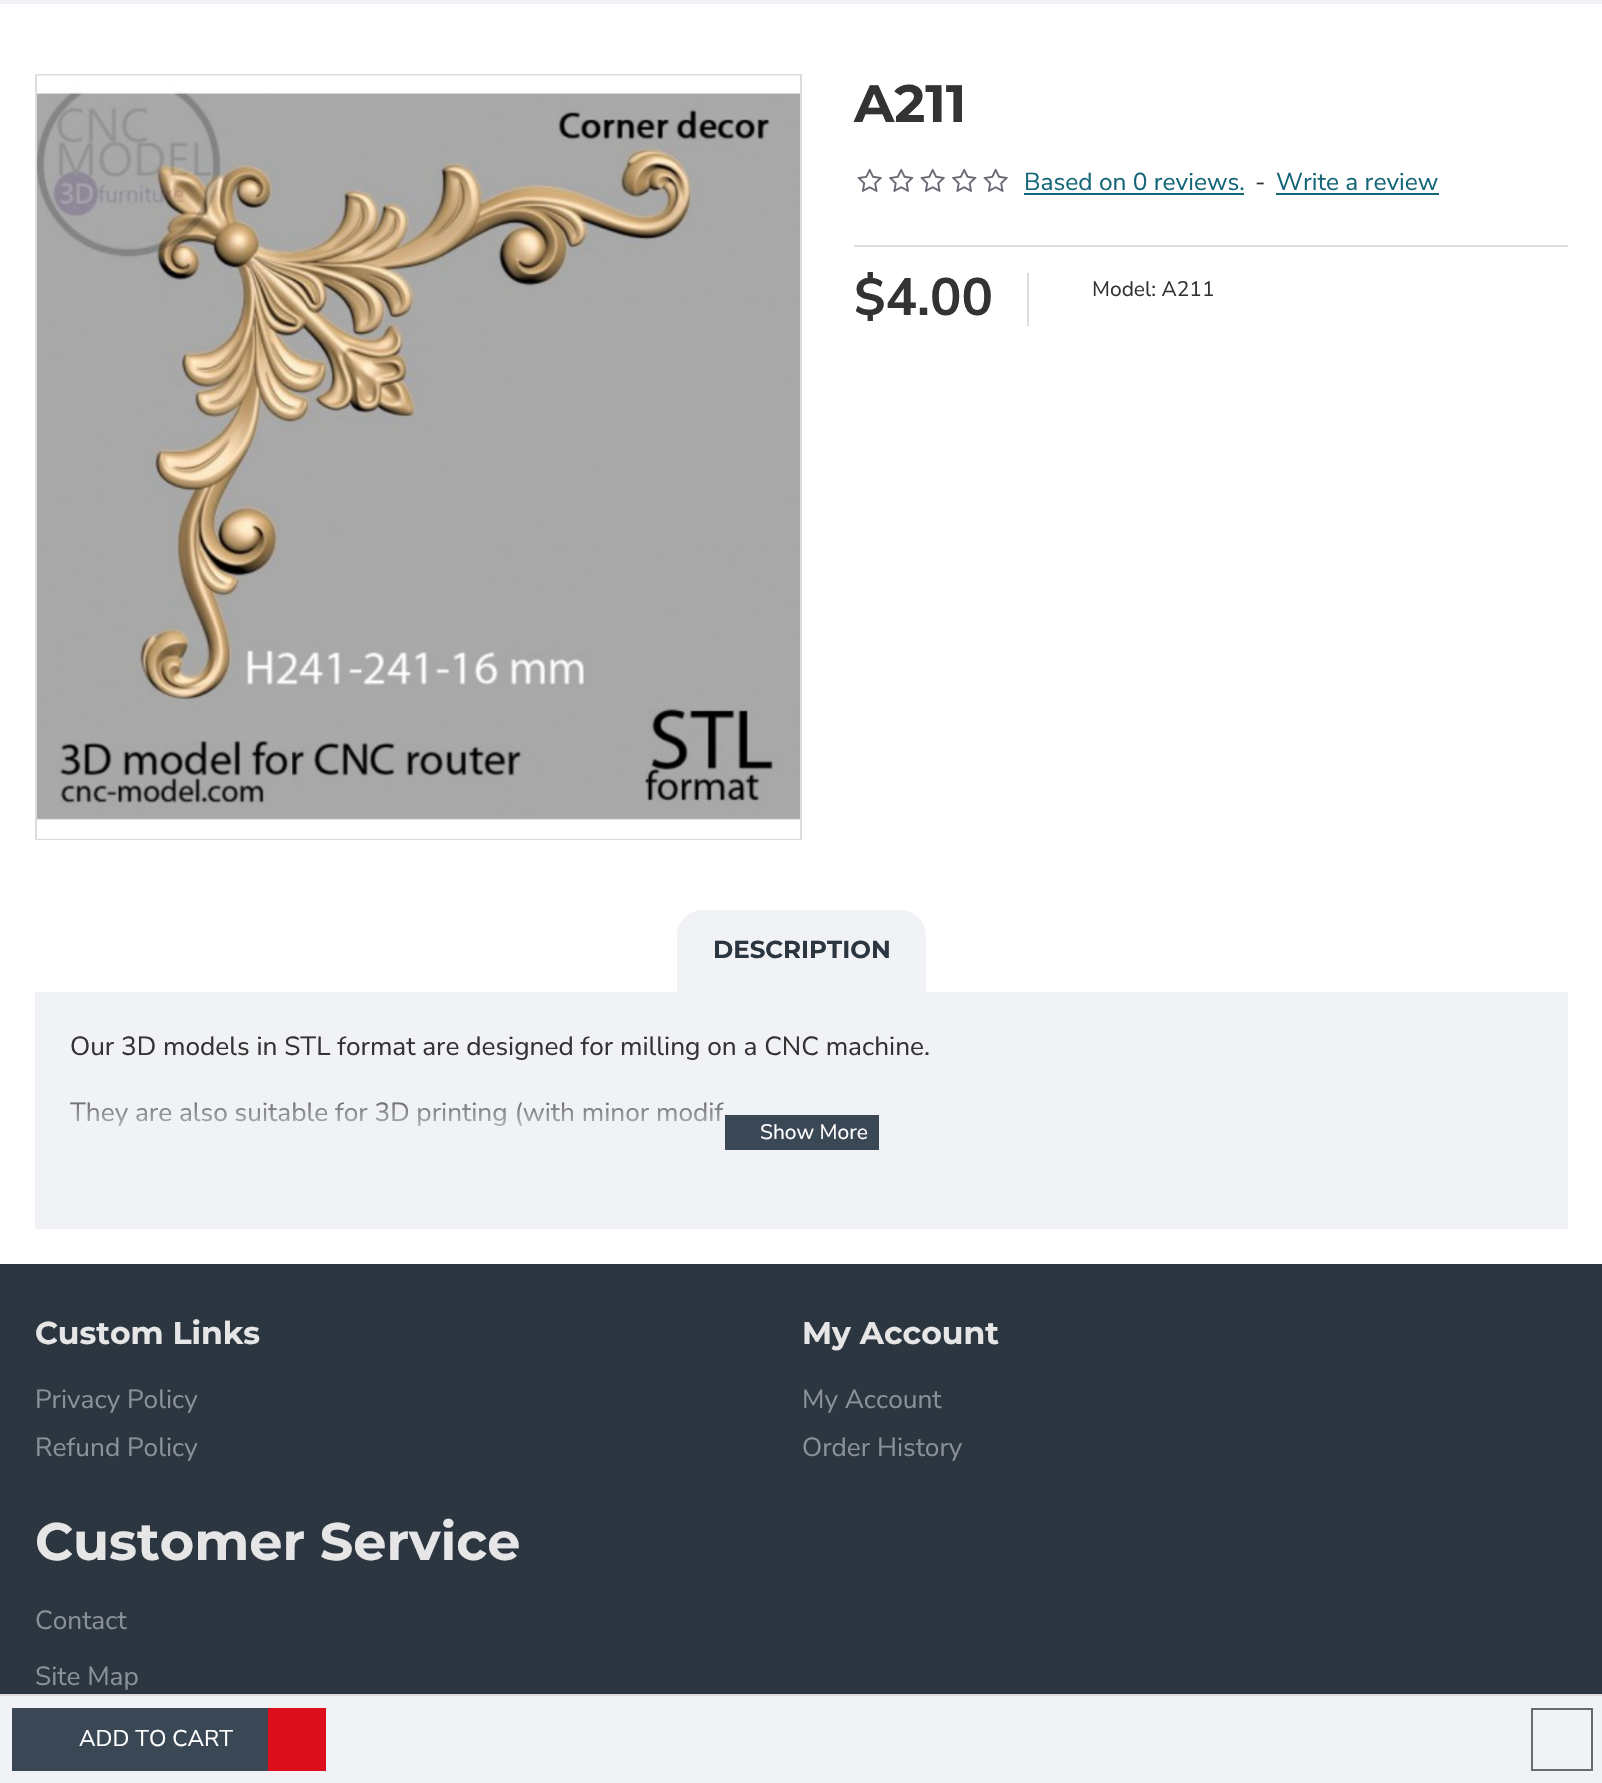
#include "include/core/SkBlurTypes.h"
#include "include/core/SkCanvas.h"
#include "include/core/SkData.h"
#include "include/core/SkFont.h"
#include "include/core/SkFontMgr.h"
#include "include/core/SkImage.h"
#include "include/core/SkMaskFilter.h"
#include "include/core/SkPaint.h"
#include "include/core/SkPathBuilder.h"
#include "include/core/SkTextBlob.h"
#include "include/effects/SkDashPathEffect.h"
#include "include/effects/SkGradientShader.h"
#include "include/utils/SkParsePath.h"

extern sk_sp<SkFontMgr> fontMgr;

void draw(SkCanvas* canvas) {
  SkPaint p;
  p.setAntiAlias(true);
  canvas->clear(SK_ColorWHITE);
  p.setColor(SkColorSetRGB(240, 242, 245));
  canvas->drawRect(SkRect::MakeLTRB(0, 0, 1602, 4), p);
  p.setStyle(SkPaint::kStroke_Style);
  p.setStrokeWidth(2);
  p.setColor(SkColorSetRGB(221, 221, 221));
  canvas->drawRect(SkRect::MakeLTRB(36, 75, 801, 839), p);
  canvas->drawImageRect(SkImages::DeferredFromEncodedData(SkData::MakeFromFileName("images/1.png")), SkRect::MakeLTRB(37, 75, 800, 839), SkSamplingOptions());
  p.setStyle(SkPaint::kFill_Style);
  canvas->drawRect(SkRect::MakeLTRB(854, 245, 1568, 247), p);
  canvas->drawImageRect(SkImages::DeferredFromEncodedData(SkData::MakeFromFileName("images/2.png")), SkRect::MakeLTRB(857, 168, 882, 192), SkSamplingOptions());
  canvas->drawImageRect(SkImages::DeferredFromEncodedData(SkData::MakeFromFileName("images/3.png")), SkRect::MakeLTRB(889, 168, 914, 192), SkSamplingOptions());
  canvas->drawImageRect(SkImages::DeferredFromEncodedData(SkData::MakeFromFileName("images/2.png")), SkRect::MakeLTRB(920, 168, 945, 192), SkSamplingOptions());
  canvas->drawImageRect(SkImages::DeferredFromEncodedData(SkData::MakeFromFileName("images/3.png")), SkRect::MakeLTRB(952, 168, 977, 192), SkSamplingOptions());
  canvas->drawImageRect(SkImages::DeferredFromEncodedData(SkData::MakeFromFileName("images/2.png")), SkRect::MakeLTRB(983, 168, 1008, 192), SkSamplingOptions());
  p.setColor(SkColorSetRGB(20, 102, 120));
  canvas->drawRect(SkRect::MakeLTRB(1024, 193, 1244, 195), p);
  canvas->drawRect(SkRect::MakeLTRB(1276, 193, 1439, 195), p);
  p.setColor(SkColorSetRGB(221, 221, 221));
  canvas->drawRect(SkRect::MakeLTRB(1027, 273, 1029, 326), p);
  p.setColor(SkColorSetRGB(240, 242, 245));
  canvas->drawRect(SkRect::MakeLTRB(0, 1696, 1602, 1783), p);
  p.setColor(SkColorSetRGB(221, 221, 221));
  canvas->drawRect(SkRect::MakeLTRB(0, 1694, 1602, 1696), p);
  p.setColor(SkColorSetRGB(58, 71, 84));
  canvas->drawRect(SkRect::MakeLTRB(12, 1708, 268, 1771), p);
  p.setColor(SkColorSetRGB(221, 14, 28));
  canvas->drawRect(SkRect::MakeLTRB(268, 1708, 326, 1771), p);
  p.setStyle(SkPaint::kStroke_Style);
  p.setColor(SkColorSetRGB(105, 105, 115));
  canvas->drawRect(SkRect::MakeLTRB(1532, 1709, 1592, 1770), p);
  p.setStyle(SkPaint::kFill_Style);
  p.setColor(SkColorSetRGB(240, 242, 245));
  canvas->drawPath(SkPathBuilder().moveTo(703, 910).lineTo(900, 910).cubicTo(914.5f, 910, 926, 921.5f, 926, 936).lineTo(926, 992).lineTo(677, 992).lineTo(677, 936).cubicTo(677, 921.5f, 688.5f, 910, 703, 910).close().detach(), p);
  canvas->drawRect(SkRect::MakeLTRB(35, 992, 1568, 1229), p);
  p.setColor(SkColorSetRGB(58, 71, 84));
  canvas->drawRect(SkRect::MakeLTRB(725, 1115, 879, 1150), p);
  p.setColor(SkColorSetRGB(44, 54, 64));
  canvas->drawRect(SkRect::MakeLTRB(0, 1264, 1602, 1694), p);
  SkFont font1(fontMgr->matchFamilyStyle("Montserrat", SkFontStyle::Bold()), 52.5f);
  font1.setSubpixel(true);
  p.setColor(SkColorSetRGB(51, 51, 51));
  canvas->drawString("A211", 854, 122, font1, p);
  SkFont font2(fontMgr->matchFamilyStyle("Nunito Sans", SkFontStyle::Normal()), 24.5f);
  font2.setSubpixel(true);
  p.setColor(SkColorSetRGB(20, 102, 120));
  canvas->drawString("Based on 0 reviews.", 1024, 190, font2, p);
  p.setColor(SkColorSetRGB(51, 51, 51));
  canvas->drawString("-", 1255, 190, font2, p);
  p.setColor(SkColorSetRGB(20, 102, 120));
  canvas->drawString("Write a review", 1276, 190, font2, p);
  SkFont font3(fontMgr->matchFamilyStyle("Nunito Sans", SkFontStyle::Bold()), 52.5f);
  font3.setSubpixel(true);
  p.setColor(SkColorSetRGB(51, 51, 51));
  canvas->drawString("$4.00", 854, 315, font3, p);
  SkFont font4(fontMgr->matchFamilyStyle("Nunito Sans", SkFontStyle::Normal()), 21);
  font4.setSubpixel(true);
  canvas->drawString("Model: A211", 1092, 296, font4, p);
  SkFont font5(fontMgr->matchFamilyStyle("Nunito Sans", SkFontStyle::Normal()), 22.75f);
  font5.setSubpixel(true);
  p.setColor(SK_ColorWHITE);
  canvas->drawString("ADD TO CART", 79, 1746, font5, p);
  SkFont font6(fontMgr->matchFamilyStyle("Montserrat", SkFontStyle::Bold()), 24.5f);
  font6.setSubpixel(true);
  p.setColor(SkColorSetRGB(44, 54, 64));
  canvas->drawString("DESCRIPTION", 713, 958, font6, p);
  SkFont font7(fontMgr->matchFamilyStyle("Nunito Sans", SkFontStyle::Normal()), 26.25f);
  font7.setSubpixel(true);
  p.setColor(SkColorSetRGB(51, 51, 51));
  canvas->drawString("Our 3D models in STL format are designed for milling on a CNC machine.", 70, 1055, font7, p);
  canvas->drawString("They are also suitable for 3D printing (with minor modif", 70, 1121, font7, p);
  {
    const SkColor colors[] = {SkColorSetARGB(0, 240, 242, 245), SkColorSetRGB(240, 242, 245)};
    const float stops[] = {0, 1};
    const SkPoint ends[] = {{802, 1080}, {802, 1150}};
    p.setShader(SkGradientShader::MakeLinear(ends, colors, stops, 2, SkTileMode::kClamp));
    p.setAlpha(255);
  }
  canvas->drawRect(SkRect::MakeLTRB(70, 1102, 724, 1126), p);
  p.setShader(nullptr);
  p.setColor(SK_ColorWHITE);
  canvas->drawString("Show More", 760, 1139, font4, p);
  SkFont font8(fontMgr->matchFamilyStyle("Montserrat", SkFontStyle::Bold()), 31.5f);
  font8.setSubpixel(true);
  p.setColor(SkColorSetRGB(230, 230, 230));
  canvas->drawString("Custom Links", 35, 1344, font8, p);
  p.setColor(SkColorSetRGB(139, 145, 152));
  canvas->drawString("Privacy Policy", 35, 1408, font7, p);
  canvas->drawString("Refund Policy", 35, 1456, font7, p);
  p.setColor(SkColorSetRGB(230, 230, 230));
  canvas->drawString("My Account", 802, 1344, font8, p);
  p.setColor(SkColorSetRGB(139, 145, 152));
  canvas->drawString("My Account", 802, 1408, font7, p);
  canvas->drawString("Order History", 802, 1456, font7, p);
  p.setColor(SkColorSetRGB(230, 230, 230));
  canvas->drawString("Customer Service", 35, 1560, font1, p);
  p.setColor(SkColorSetRGB(139, 145, 152));
  canvas->drawString("Contact", 35, 1629, font7, p);
  canvas->drawString("Site Map", 35, 1685, font7, p);
}
